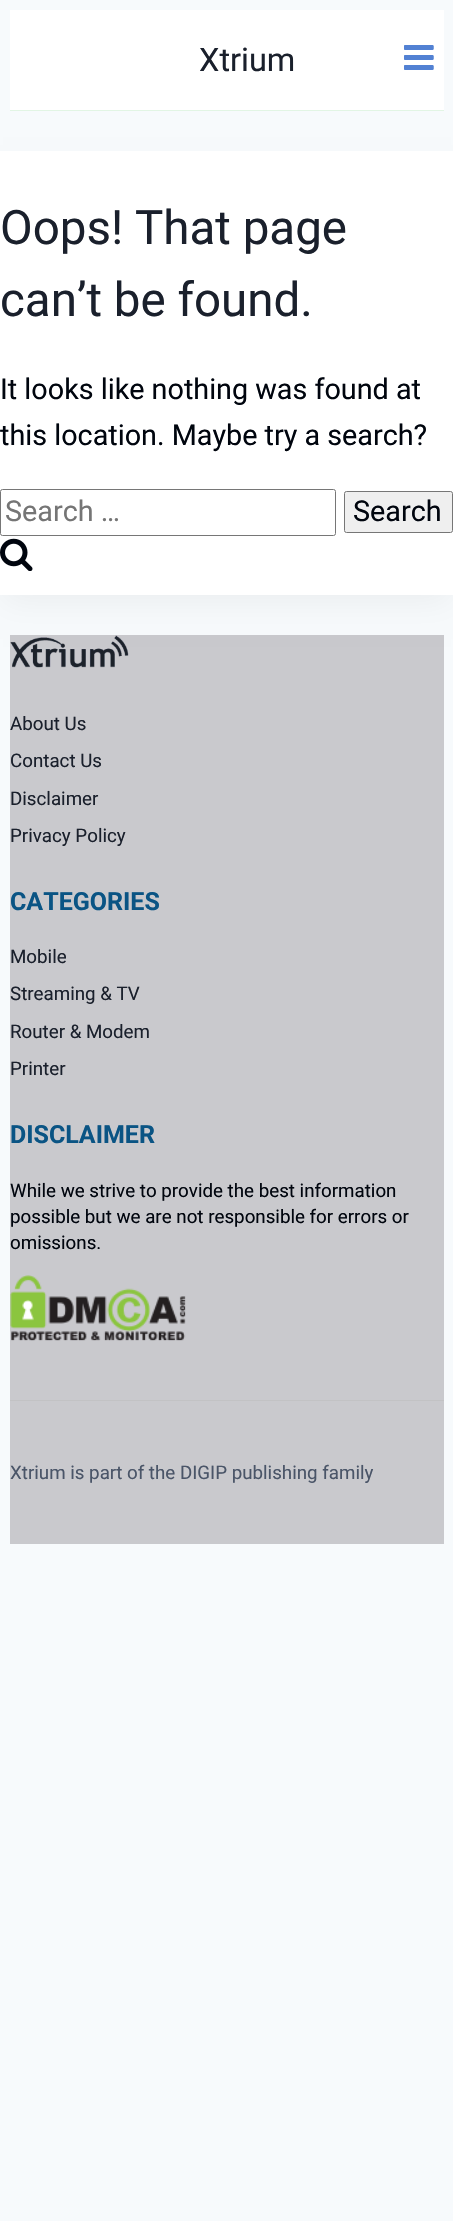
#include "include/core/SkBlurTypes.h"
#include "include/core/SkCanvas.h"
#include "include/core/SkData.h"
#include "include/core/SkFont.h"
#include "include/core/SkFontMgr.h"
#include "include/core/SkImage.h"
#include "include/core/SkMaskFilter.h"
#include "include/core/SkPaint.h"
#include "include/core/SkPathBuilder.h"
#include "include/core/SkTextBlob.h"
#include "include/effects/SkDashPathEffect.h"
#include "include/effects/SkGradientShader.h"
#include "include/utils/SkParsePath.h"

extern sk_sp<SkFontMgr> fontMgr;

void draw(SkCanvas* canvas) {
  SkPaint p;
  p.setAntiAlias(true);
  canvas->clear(SkColorSetRGB(247, 250, 252));
  p.setColor(SK_ColorWHITE);
  canvas->drawRect(SkRect::MakeLTRB(10, 10, 444, 110), p);
  p.setColor(SkColorSetRGB(226, 245, 228));
  canvas->drawRect(SkRect::MakeLTRB(10, 110, 444, 111), p);
  canvas->drawImageRect(SkImages::DeferredFromEncodedData(SkData::MakeFromFileName("images/1.png")), SkRect::MakeLTRB(404, 45, 434, 70), SkSamplingOptions());
  p.setColor(SkColorSetRGB(201, 201, 205));
  canvas->drawRect(SkRect::MakeLTRB(10, 635, 444, 1544), p);
  p.setColor(SkColorSetARGB(13, 0, 0, 0));
  p.setMaskFilter(SkMaskFilter::MakeBlur(kNormal_SkBlurStyle, 15.5f));
  canvas->drawRect(SkRect::MakeLTRB(3, 183, 451, 601), p);
  p.setMaskFilter(nullptr);
  p.setColor(SK_ColorWHITE);
  canvas->drawRect(SkRect::MakeLTRB(0, 151, 453, 595), p);
  p.setStyle(SkPaint::kStroke_Style);
  p.setStrokeWidth(1);
  p.setColor(SkColorSetRGB(118, 118, 118));
  canvas->drawRoundRect(SkRect::MakeLTRB(0.5f, 489.5f, 335.5f, 535.5f), 2, 2, p);
  p.setStyle(SkPaint::kFill_Style);
  p.setColor(SkColorSetRGB(239, 239, 239));
  canvas->drawRoundRect(SkRect::MakeLTRB(344.5f, 491.5f, 452.5f, 532.5f), 2, 2, p);
  p.setStyle(SkPaint::kStroke_Style);
  p.setColor(SkColorSetRGB(118, 118, 118));
  canvas->drawRoundRect(SkRect::MakeLTRB(344.5f, 491.5f, 452.5f, 532.5f), 2, 2, p);
  canvas->drawImageRect(SkImages::DeferredFromEncodedData(SkData::MakeFromFileName("images/2.png")), SkRect::MakeLTRB(0, 538, 33, 571), SkSamplingOptions());
  canvas->drawImageRect(SkImages::DeferredFromEncodedData(SkData::MakeFromFileName("images/3.png")), SkRect::MakeLTRB(10, 635, 129, 668), SkSamplingOptions());
  canvas->drawImageRect(SkImages::DeferredFromEncodedData(SkData::MakeFromFileName("images/4.png")), SkRect::MakeLTRB(10, 1275, 186, 1341), SkSamplingOptions());
  p.setStyle(SkPaint::kFill_Style);
  p.setColor(SkColorSetRGB(194, 194, 196));
  canvas->drawRect(SkRect::MakeLTRB(10, 1400, 444, 1401), p);
  SkFont font1(fontMgr->matchFamilyStyle("Roboto", SkFontStyle::Normal()), 32.5f);
  font1.setSubpixel(true);
  p.setColor(SkColorSetRGB(26, 32, 44));
  canvas->drawString("Xtrium", 199, 71, font1, p);
  SkFont font2(fontMgr->matchFamilyStyle("Roboto", SkFontStyle::Normal()), 47.5f);
  font2.setSubpixel(true);
  canvas->drawString("Oops! That page", 0, 244, font2, p);
  canvas->drawString("can’t be found.", 0, 316, font2, p);
  SkFont font3(fontMgr->matchFamilyStyle("Roboto", SkFontStyle::Normal()), 28.75f);
  font3.setSubpixel(true);
  p.setColor(SkColorSetRGB(0, 5, 14));
  canvas->drawString("It looks like nothing was found at", 0, 399, font3, p);
  canvas->drawString("this location. Maybe try a search?", 0, 445, font3, p);
  p.setColor(SkColorSetRGB(117, 117, 117));
  canvas->drawString("Search …", 5, 521, font3, p);
  p.setColor(SkColorSetRGB(0, 5, 14));
  canvas->drawString("Search", 353, 521, font3, p);
  SkFont font4(fontMgr->matchFamilyStyle("Roboto", SkFontStyle::Normal()), 18.75f);
  font4.setSubpixel(true);
  p.setColor(SkColorSetRGB(26, 32, 44));
  canvas->drawString("About Us", 10, 730, font4, p);
  canvas->drawString("Contact Us", 10, 767, font4, p);
  canvas->drawString("Disclaimer", 10, 805, font4, p);
  canvas->drawString("Privacy Policy", 10, 842, font4, p);
  SkFont font5(fontMgr->matchFamilyStyle("Roboto", SkFontStyle::Bold()), 25);
  font5.setSubpixel(true);
  p.setColor(SkColorSetRGB(10, 84, 132));
  canvas->drawString("CATEGORIES", 10, 910, font5, p);
  p.setColor(SkColorSetRGB(26, 32, 44));
  canvas->drawString("Mobile", 10, 963, font4, p);
  canvas->drawString("Streaming & TV", 10, 1000, font4, p);
  canvas->drawString("Router & Modem", 10, 1038, font4, p);
  canvas->drawString("Printer", 10, 1075, font4, p);
  p.setColor(SkColorSetRGB(10, 84, 132));
  canvas->drawString("DISCLAIMER", 10, 1143, font5, p);
  p.setColor(SkColorSetRGB(0, 5, 14));
  canvas->drawString("While we strive to provide the best information", 10, 1197, font4, p);
  canvas->drawString("possible but we are not responsible for errors or", 10, 1223, font4, p);
  canvas->drawString("omissions.", 10, 1249, font4, p);
  p.setColor(SkColorSetRGB(74, 85, 104));
  canvas->drawString("Xtrium is part of the DIGIP publishing family", 10, 1479, font4, p);
}
